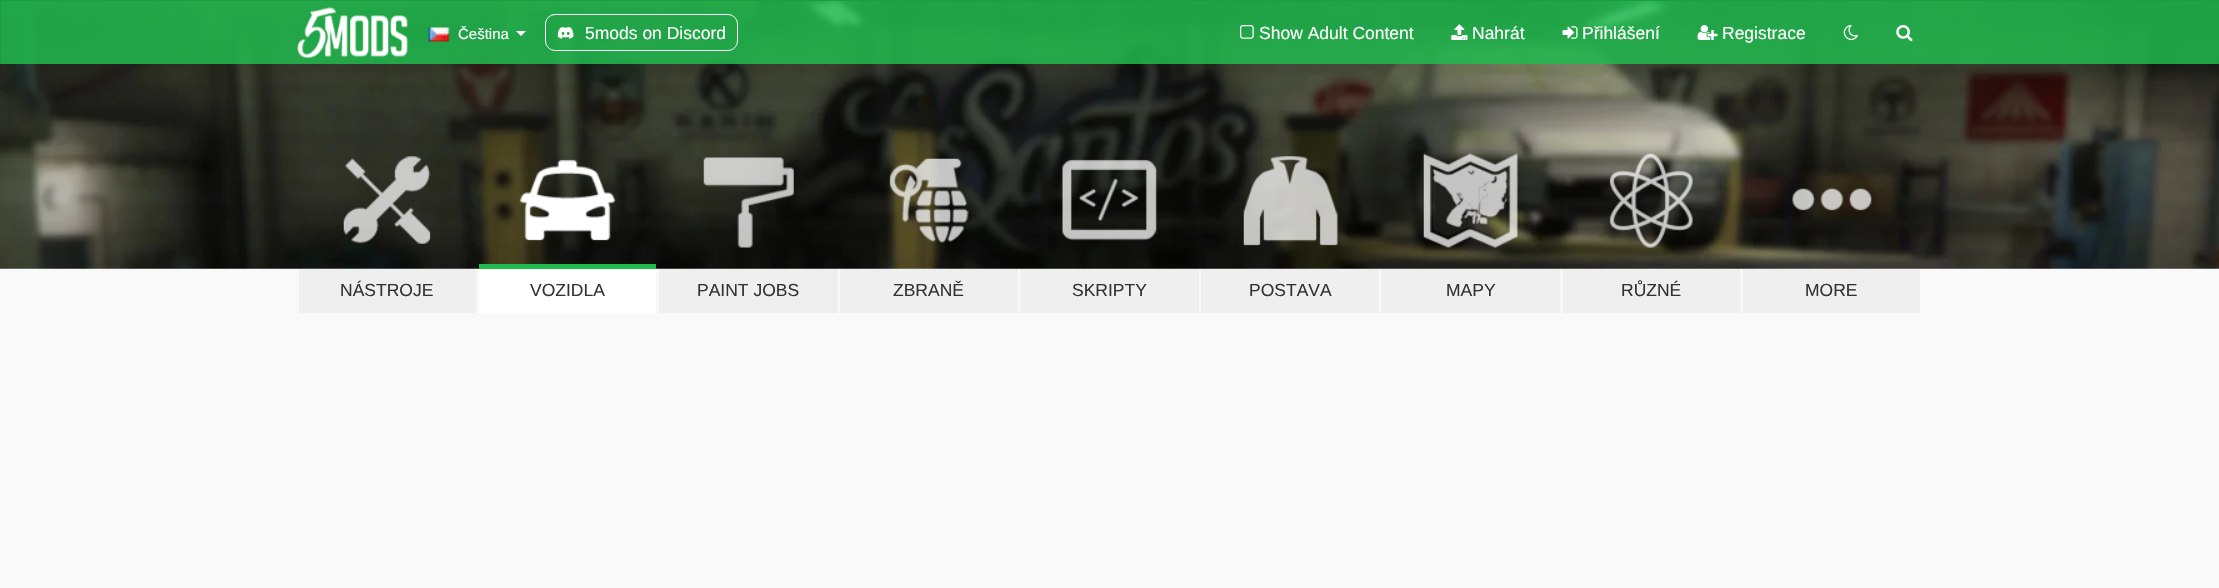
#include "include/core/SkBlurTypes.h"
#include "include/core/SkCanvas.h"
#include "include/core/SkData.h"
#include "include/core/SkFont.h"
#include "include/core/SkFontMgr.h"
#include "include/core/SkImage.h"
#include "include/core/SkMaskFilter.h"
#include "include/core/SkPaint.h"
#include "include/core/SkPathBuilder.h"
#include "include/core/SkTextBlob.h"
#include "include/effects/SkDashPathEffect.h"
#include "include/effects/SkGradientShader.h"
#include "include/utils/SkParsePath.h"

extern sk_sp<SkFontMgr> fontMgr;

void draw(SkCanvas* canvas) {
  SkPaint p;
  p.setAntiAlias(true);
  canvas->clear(SkColorSetRGB(249, 249, 249));
  canvas->drawImageRect(SkImages::DeferredFromEncodedData(SkData::MakeFromFileName("images/10.png")), SkRect::MakeLTRB(0, 1, 2219, 269), SkSamplingOptions());
  p.setColor(SkColorSetARGB(217, 32, 186, 78));
  canvas->drawRect(SkRect::MakeLTRB(1, 1, 2219, 64), p);
  p.setColor(SkColorSetRGB(27, 158, 66));
  canvas->drawRect(SkRect::MakeLTRB(0, 0, 2219, 1), p);
  canvas->drawRect(SkRect::MakeLTRB(0, 0, 1, 64), p);
  canvas->drawImageRect(SkImages::DeferredFromEncodedData(SkData::MakeFromFileName("images/1.png")), SkRect::MakeLTRB(297, 7, 409, 58), SkSamplingOptions());
  canvas->drawImageRect(SkImages::DeferredFromEncodedData(SkData::MakeFromFileName("images/2.png")), SkRect::MakeLTRB(428, 27, 450, 42), SkSamplingOptions());
  p.setColor(SK_ColorWHITE);
  canvas->drawPath(SkPathBuilder().moveTo(516, 31).lineTo(526, 31).lineTo(521, 36).close().detach(), p);
  p.setStyle(SkPaint::kStroke_Style);
  p.setStrokeWidth(1);
  canvas->drawRoundRect(SkRect::MakeLTRB(545.5f, 14.5f, 737.5f, 50.5f), 9.5f, 9.5f, p);
  canvas->drawImageRect(SkImages::DeferredFromEncodedData(SkData::MakeFromFileName("images/3.png")), SkRect::MakeLTRB(557, 26, 574, 39), SkSamplingOptions());
  canvas->drawImageRect(SkImages::DeferredFromEncodedData(SkData::MakeFromFileName("images/4.png")), SkRect::MakeLTRB(1240, 25, 1254, 39), SkSamplingOptions());
  canvas->drawImageRect(SkImages::DeferredFromEncodedData(SkData::MakeFromFileName("images/5.png")), SkRect::MakeLTRB(1451, 24, 1468, 40), SkSamplingOptions());
  canvas->drawImageRect(SkImages::DeferredFromEncodedData(SkData::MakeFromFileName("images/6.png")), SkRect::MakeLTRB(1562, 26, 1578, 39), SkSamplingOptions());
  canvas->drawImageRect(SkImages::DeferredFromEncodedData(SkData::MakeFromFileName("images/7.png")), SkRect::MakeLTRB(1697, 25, 1718, 40), SkSamplingOptions());
  canvas->drawImageRect(SkImages::DeferredFromEncodedData(SkData::MakeFromFileName("images/8.png")), SkRect::MakeLTRB(1843, 25, 1859, 40), SkSamplingOptions());
  canvas->drawImageRect(SkImages::DeferredFromEncodedData(SkData::MakeFromFileName("images/9.png")), SkRect::MakeLTRB(1896, 25, 1913, 42), SkSamplingOptions());
  canvas->drawImageRect(SkImages::DeferredFromEncodedData(SkData::MakeFromFileName("images/11.png")), SkRect::MakeLTRB(343, 156, 431, 244), SkSamplingOptions());
  p.setStyle(SkPaint::kFill_Style);
  p.setColor(SkColorSetRGB(239, 239, 239));
  canvas->drawRect(SkRect::MakeLTRB(299, 269, 476, 313), p);
  canvas->drawImageRect(SkImages::DeferredFromEncodedData(SkData::MakeFromFileName("images/12.png")), SkRect::MakeLTRB(519, 159, 616, 241), SkSamplingOptions());
  p.setColor(SkColorSetRGB(32, 186, 78));
  canvas->drawRect(SkRect::MakeLTRB(479, 264, 656, 269), p);
  p.setColor(SK_ColorWHITE);
  canvas->drawRect(SkRect::MakeLTRB(479, 269, 656, 313), p);
  canvas->drawImageRect(SkImages::DeferredFromEncodedData(SkData::MakeFromFileName("images/13.png")), SkRect::MakeLTRB(703, 157, 794, 248), SkSamplingOptions());
  p.setColor(SkColorSetRGB(239, 239, 239));
  canvas->drawRect(SkRect::MakeLTRB(659, 269, 838, 313), p);
  canvas->drawImageRect(SkImages::DeferredFromEncodedData(SkData::MakeFromFileName("images/14.png")), SkRect::MakeLTRB(889, 158, 969, 243), SkSamplingOptions());
  canvas->drawRect(SkRect::MakeLTRB(840, 269, 1018, 313), p);
  canvas->drawImageRect(SkImages::DeferredFromEncodedData(SkData::MakeFromFileName("images/15.png")), SkRect::MakeLTRB(1062, 159, 1157, 241), SkSamplingOptions());
  canvas->drawRect(SkRect::MakeLTRB(1020, 269, 1199, 313), p);
  canvas->drawImageRect(SkImages::DeferredFromEncodedData(SkData::MakeFromFileName("images/16.png")), SkRect::MakeLTRB(1243, 156, 1338, 246), SkSamplingOptions());
  canvas->drawRect(SkRect::MakeLTRB(1201, 269, 1379, 313), p);
  canvas->drawImageRect(SkImages::DeferredFromEncodedData(SkData::MakeFromFileName("images/17.png")), SkRect::MakeLTRB(1423, 153, 1518, 248), SkSamplingOptions());
  canvas->drawRect(SkRect::MakeLTRB(1381, 269, 1560, 313), p);
  canvas->drawImageRect(SkImages::DeferredFromEncodedData(SkData::MakeFromFileName("images/18.png")), SkRect::MakeLTRB(1609, 153, 1693, 248), SkSamplingOptions());
  canvas->drawRect(SkRect::MakeLTRB(1563, 269, 1740, 313), p);
  canvas->drawImageRect(SkImages::DeferredFromEncodedData(SkData::MakeFromFileName("images/19.png")), SkRect::MakeLTRB(1792, 188, 1872, 211), SkSamplingOptions());
  canvas->drawRect(SkRect::MakeLTRB(1743, 269, 1920, 313), p);
  SkFont font1(fontMgr->matchFamilyStyle("Liberation Sans", SkFontStyle::Normal()), 15);
  font1.setSubpixel(true);
  p.setColor(SK_ColorWHITE);
  canvas->drawString("Čeština", 458, 39, font1, p);
  SkFont font2(fontMgr->matchFamilyStyle("Liberation Sans", SkFontStyle::Normal()), 17.5f);
  font2.setSubpixel(true);
  canvas->drawString("5mods on Discord", 585, 39, font2, p);
  canvas->drawString("Show Adult Content", 1259, 39, font2, p);
  canvas->drawString("Nahrát", 1472, 39, font2, p);
  canvas->drawString("Přihlášení", 1582, 39, font2, p);
  canvas->drawString("Registrace", 1722, 39, font2, p);
  p.setColor(SkColorSetRGB(51, 51, 51));
  canvas->drawString("NÁSTROJE", 340, 296, font2, p);
  canvas->drawString("VOZIDLA", 530, 296, font2, p);
  canvas->drawString("PAINT JOBS", 697, 296, font2, p);
  canvas->drawString("ZBRANĚ", 893, 296, font2, p);
  canvas->drawString("SKRIPTY", 1072, 296, font2, p);
  canvas->drawString("POSTAVA", 1249, 296, font2, p);
  canvas->drawString("MAPY", 1446, 296, font2, p);
  canvas->drawString("RŮZNÉ", 1621, 296, font2, p);
  canvas->drawString("MORE", 1805, 296, font2, p);
}
